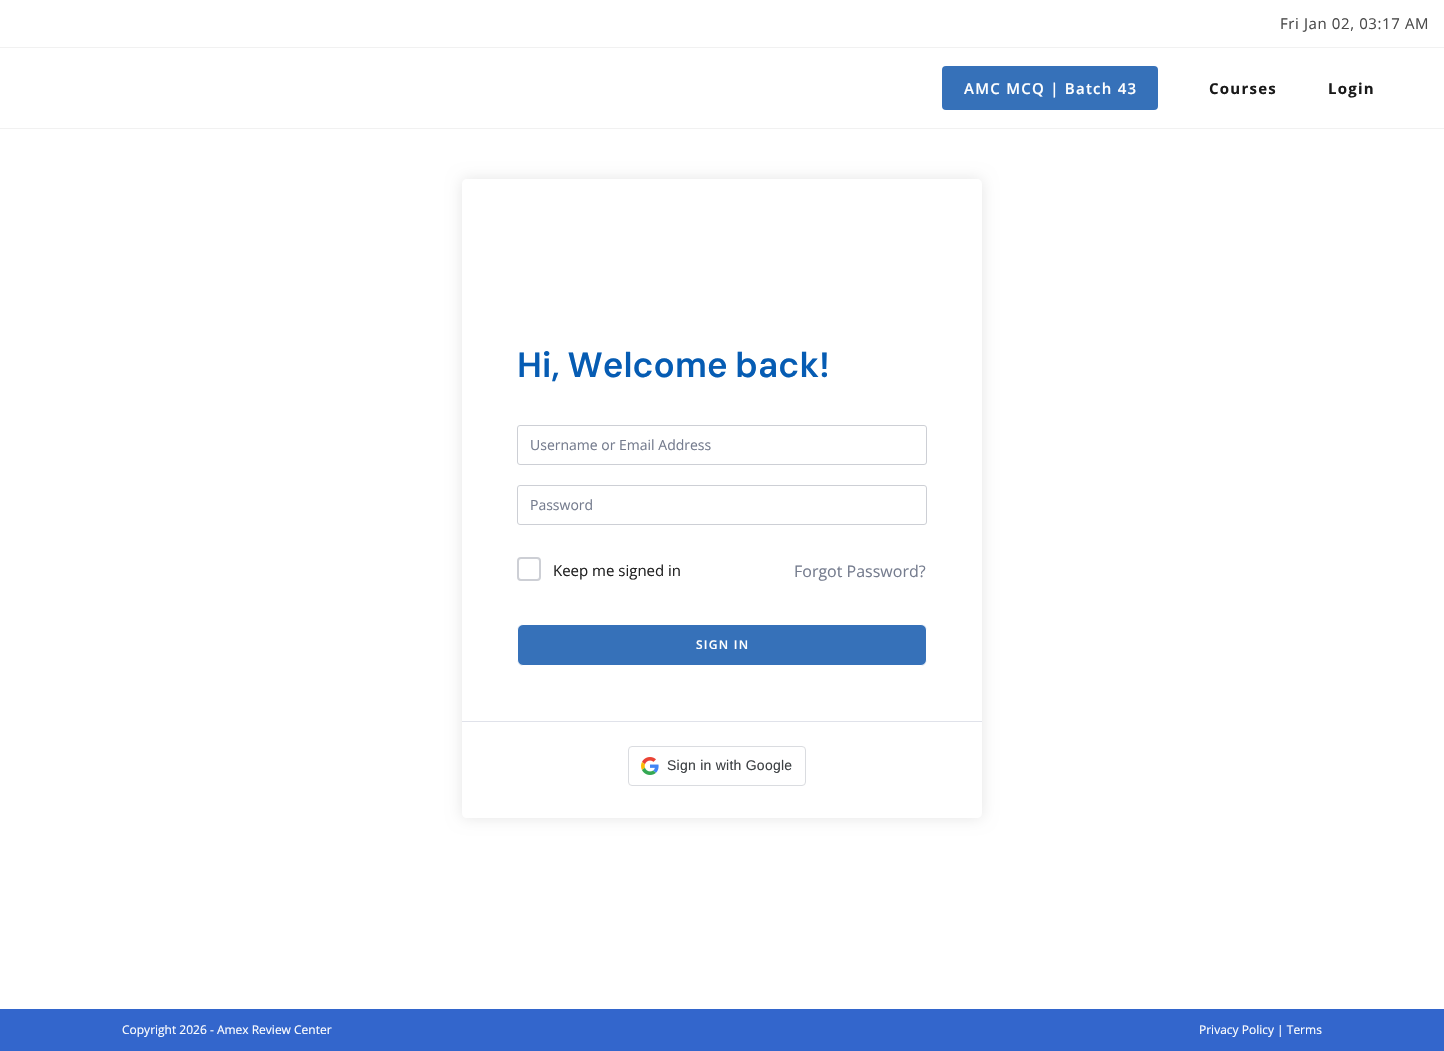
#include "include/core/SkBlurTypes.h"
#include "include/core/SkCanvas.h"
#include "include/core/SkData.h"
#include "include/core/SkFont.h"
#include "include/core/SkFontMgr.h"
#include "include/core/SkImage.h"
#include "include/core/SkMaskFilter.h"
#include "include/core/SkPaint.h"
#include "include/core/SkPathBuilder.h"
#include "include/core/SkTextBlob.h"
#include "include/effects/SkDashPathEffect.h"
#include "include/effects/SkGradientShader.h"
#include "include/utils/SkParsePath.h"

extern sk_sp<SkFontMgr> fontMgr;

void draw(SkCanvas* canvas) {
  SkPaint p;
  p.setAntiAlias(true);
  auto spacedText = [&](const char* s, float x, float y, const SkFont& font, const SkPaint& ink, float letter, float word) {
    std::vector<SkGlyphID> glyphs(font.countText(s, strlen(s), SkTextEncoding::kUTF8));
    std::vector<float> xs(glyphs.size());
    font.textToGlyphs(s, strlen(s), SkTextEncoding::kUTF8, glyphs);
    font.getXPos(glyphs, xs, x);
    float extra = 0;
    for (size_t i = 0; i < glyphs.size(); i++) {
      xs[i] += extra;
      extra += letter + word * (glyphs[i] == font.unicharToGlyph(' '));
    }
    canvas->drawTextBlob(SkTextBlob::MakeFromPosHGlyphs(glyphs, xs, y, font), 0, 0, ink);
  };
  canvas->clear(SK_ColorWHITE);
  p.setColor(SkColorSetRGB(241, 241, 241));
  canvas->drawRect(SkRect::MakeLTRB(0, 47, 1444, 48), p);
  canvas->drawRect(SkRect::MakeLTRB(0, 128, 1444, 129), p);
  p.setColor(SkColorSetRGB(54, 113, 185));
  canvas->drawRoundRect(SkRect::MakeLTRB(942, 66, 1158, 110), 4, 4, p);
  canvas->save();
  canvas->clipPath(SkPathBuilder(SkPathFillType::kEvenOdd).moveTo(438, 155).lineTo(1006, 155).lineTo(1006, 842).lineTo(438, 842).close().moveTo(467, 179).lineTo(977, 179).cubicTo(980, 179, 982, 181, 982, 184).lineTo(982, 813).cubicTo(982, 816, 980, 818, 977, 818).lineTo(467, 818).cubicTo(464, 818, 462, 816, 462, 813).lineTo(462, 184).cubicTo(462, 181, 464, 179, 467, 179).close().detach(), true);
  p.setColor(SkColorSetARGB(26, 0, 0, 0));
  p.setMaskFilter(SkMaskFilter::MakeBlur(kNormal_SkBlurStyle, 7.5f));
  canvas->drawRoundRect(SkRect::MakeLTRB(462, 179, 982, 818), 5, 5, p);
  p.setMaskFilter(nullptr);
  canvas->restore();
  p.setStyle(SkPaint::kStroke_Style);
  p.setStrokeWidth(1);
  p.setColor(SkColorSetRGB(205, 207, 213));
  canvas->drawRoundRect(SkRect::MakeLTRB(517.5f, 425.5f, 926.5f, 464.5f), 2.5f, 2.5f, p);
  canvas->drawRoundRect(SkRect::MakeLTRB(517.5f, 485.5f, 926.5f, 524.5f), 2.5f, 2.5f, p);
  p.setStrokeWidth(2);
  canvas->drawRoundRect(SkRect::MakeLTRB(518, 558, 540, 580), 3, 3, p);
  p.setStyle(SkPaint::kFill_Style);
  p.setColor(SkColorSetRGB(54, 113, 185));
  canvas->drawRoundRect(SkRect::MakeLTRB(517.5f, 624.5f, 926.5f, 665.5f), 5.5f, 5.5f, p);
  p.setStyle(SkPaint::kStroke_Style);
  p.setStrokeWidth(1);
  p.setColor(SK_ColorWHITE);
  canvas->drawRoundRect(SkRect::MakeLTRB(517.5f, 624.5f, 926.5f, 665.5f), 5.5f, 5.5f, p);
  p.setStyle(SkPaint::kFill_Style);
  p.setColor(SkColorSetRGB(224, 226, 234));
  canvas->drawRect(SkRect::MakeLTRB(462, 721, 982, 722), p);
  p.setStyle(SkPaint::kStroke_Style);
  p.setColor(SkColorSetRGB(218, 220, 224));
  canvas->drawRoundRect(SkRect::MakeLTRB(628.5f, 746.5f, 805.5f, 785.5f), 3.5f, 3.5f, p);
  canvas->drawImageRect(SkImages::DeferredFromEncodedData(SkData::MakeFromFileName("images/1.png")), SkRect::MakeLTRB(641, 757, 659, 775), SkSamplingOptions());
  p.setStyle(SkPaint::kFill_Style);
  p.setColor(SkColorSetRGB(51, 102, 204));
  canvas->drawRect(SkRect::MakeLTRB(0, 1009, 1444, 1051), p);
  SkFont font1(fontMgr->matchFamilyStyle("Open Sans", SkFontStyle::Normal()), 15);
  font1.setSubpixel(true);
  p.setColor(SkColorSetRGB(74, 74, 74));
  spacedText("Fri Jan 02, 03:17 AM", 1280, 29, font1, p, 0.6f, 0);
  SkFont font2(fontMgr->matchFamilyStyle("Open Sans", SkFontStyle(600, SkFontStyle::kNormal_Width, SkFontStyle::kUpright_Slant)), 15);
  font2.setSubpixel(true);
  p.setColor(SK_ColorWHITE);
  spacedText("AMC MCQ | Batch 43", 964, 94, font2, p, 1.25f, 0);
  SkFont font3(fontMgr->matchFamilyStyle("Open Sans", SkFontStyle::Bold()), 15);
  font3.setSubpixel(true);
  p.setColor(SkColorSetRGB(25, 25, 25));
  spacedText("Courses", 1209, 94, font3, p, 1.25f, 0);
  spacedText("Login", 1328, 94, font3, p, 1.25f, 0);
  SkFont font4(fontMgr->matchFamilyStyle("DM Sans", SkFontStyle(600, SkFontStyle::kNormal_Width, SkFontStyle::kUpright_Slant)), 35);
  font4.setSubpixel(true);
  p.setColor(SkColorSetRGB(6, 92, 179));
  spacedText("Hi, Welcome back!", 517, 377, font4, p, 0, -1);
  SkFont font5(fontMgr->matchFamilyStyle("Open Sans", SkFontStyle::Normal()), 14);
  font5.setSubpixel(true);
  p.setColor(SkColorSetRGB(117, 124, 142));
  canvas->drawString("Username or Email Address", 530, 450, font5, p);
  canvas->drawString("Password", 530, 510, font5, p);
  p.setColor(SkColorSetRGB(34, 34, 34));
  canvas->drawString("Keep me signed in", 553, 576, font1, p);
  SkFont font6(fontMgr->matchFamilyStyle("Open Sans", SkFontStyle::Normal()), 16);
  font6.setSubpixel(true);
  p.setColor(SkColorSetRGB(117, 124, 142));
  canvas->drawString("Forgot Password?", 794, 577, font6, p);
  SkFont font7(fontMgr->matchFamilyStyle("Open Sans", SkFontStyle(600, SkFontStyle::kNormal_Width, SkFontStyle::kUpright_Slant)), 12);
  font7.setSubpixel(true);
  p.setColor(SK_ColorWHITE);
  spacedText("SIGN IN", 696, 649, font7, p, 1.25f, 0);
  SkFont font8(fontMgr->matchFamilyStyle("Liberation Sans", SkFontStyle::Normal()), 14);
  font8.setSubpixel(true);
  p.setColor(SkColorSetRGB(60, 64, 67));
  spacedText("Sign in with Google", 667, 770, font8, p, 0.25f, 0);
  SkFont font9(fontMgr->matchFamilyStyle("Open Sans", SkFontStyle::Normal()), 12);
  font9.setSubpixel(true);
  p.setColor(SK_ColorWHITE);
  canvas->drawString("Copyright 2026 - Amex Review Center", 122, 1034, font9, p);
  canvas->drawString("Privacy Policy | Terms", 1199, 1034, font9, p);
}
